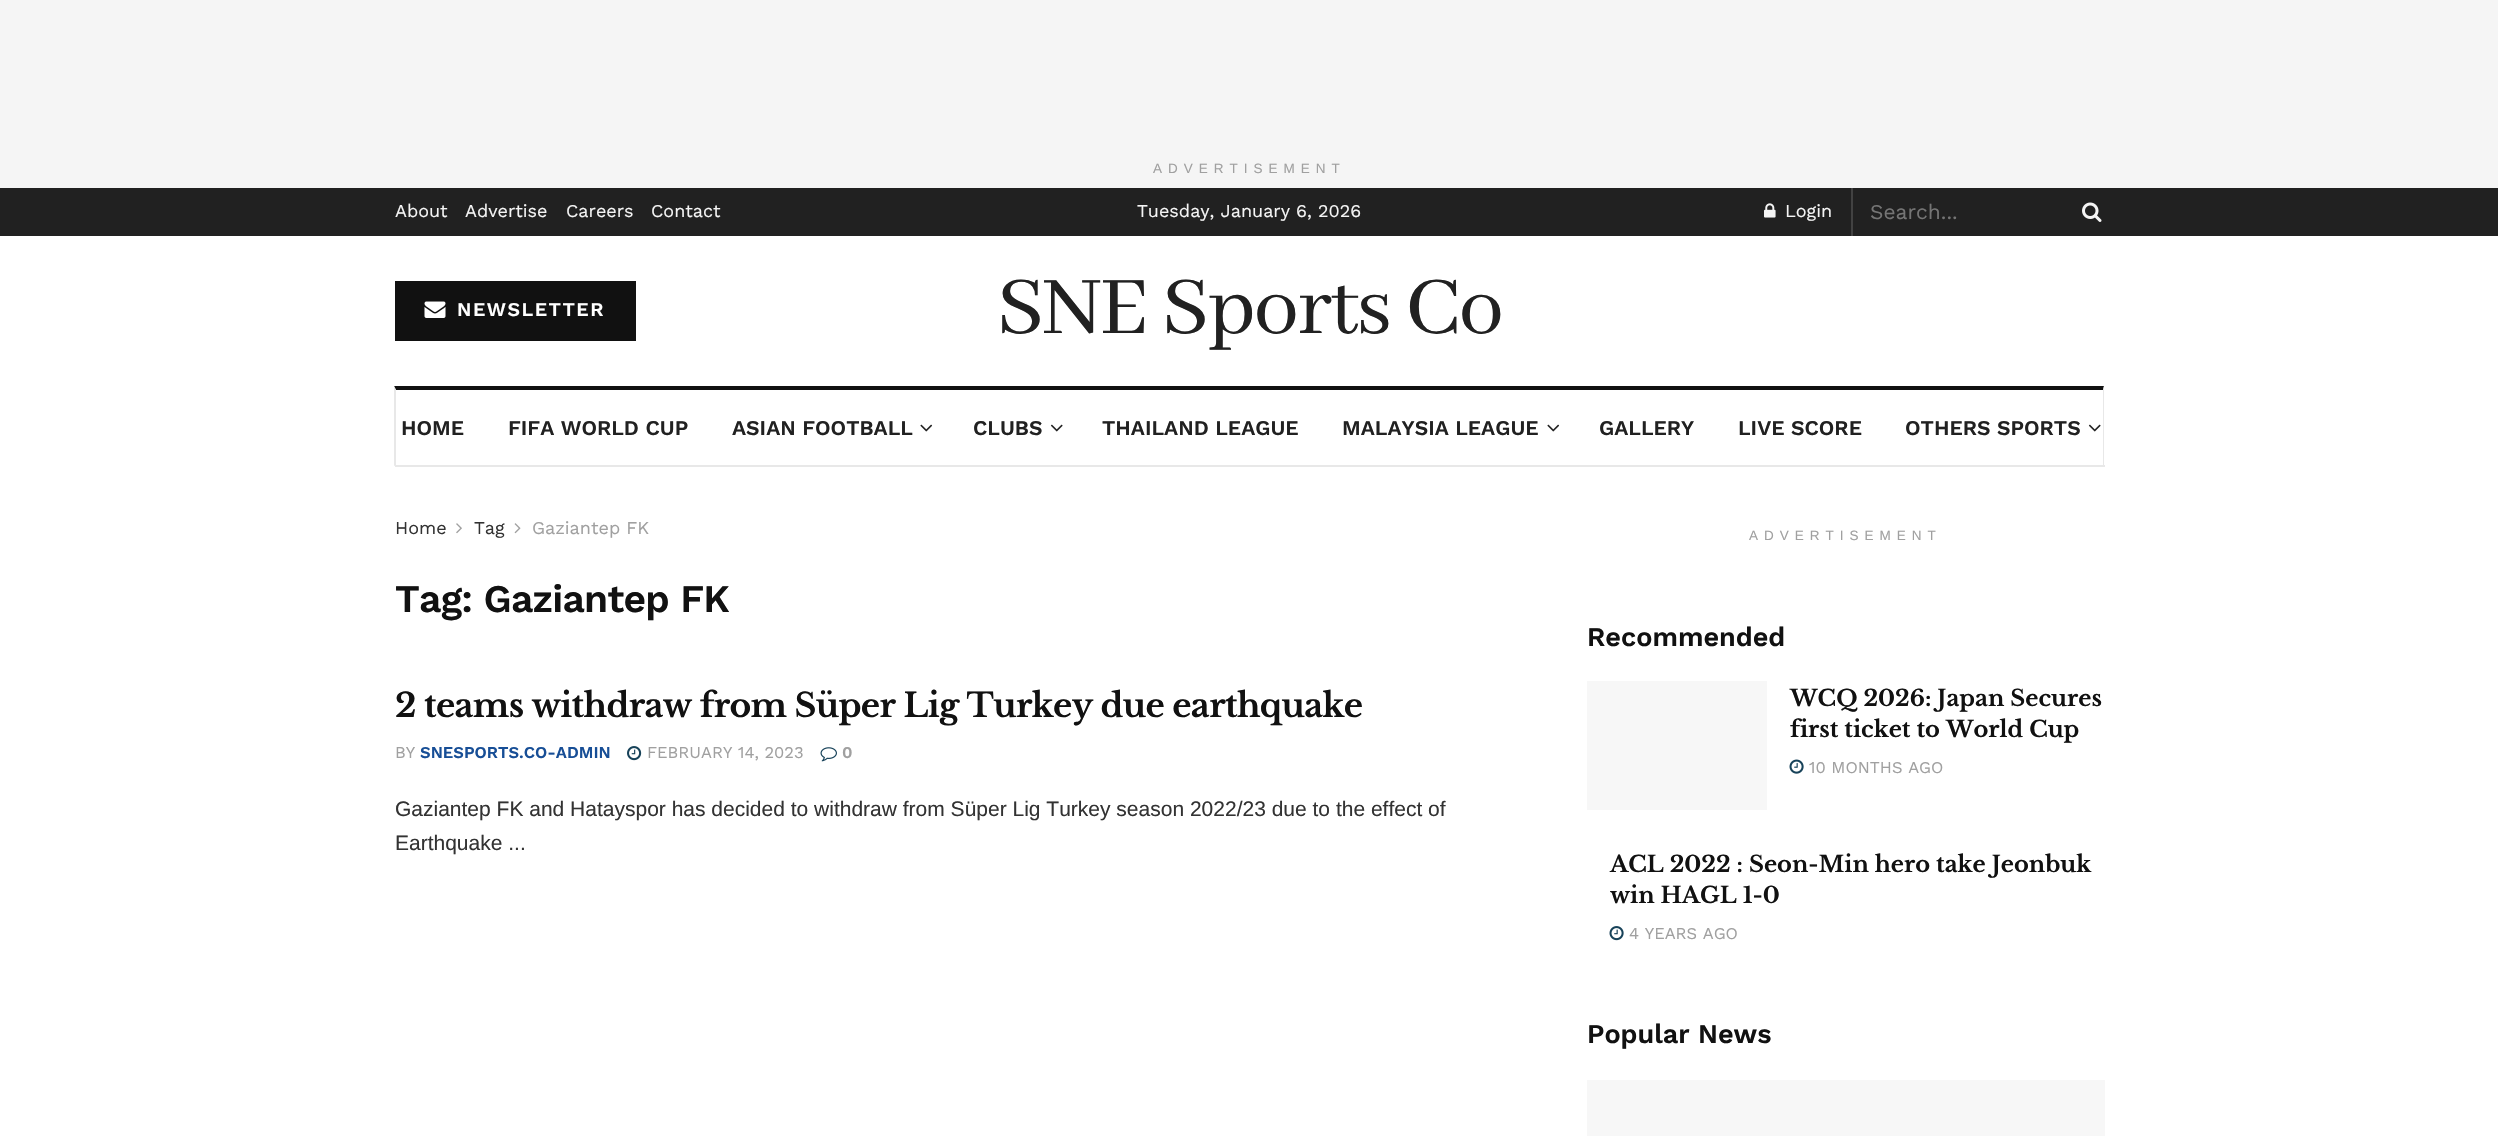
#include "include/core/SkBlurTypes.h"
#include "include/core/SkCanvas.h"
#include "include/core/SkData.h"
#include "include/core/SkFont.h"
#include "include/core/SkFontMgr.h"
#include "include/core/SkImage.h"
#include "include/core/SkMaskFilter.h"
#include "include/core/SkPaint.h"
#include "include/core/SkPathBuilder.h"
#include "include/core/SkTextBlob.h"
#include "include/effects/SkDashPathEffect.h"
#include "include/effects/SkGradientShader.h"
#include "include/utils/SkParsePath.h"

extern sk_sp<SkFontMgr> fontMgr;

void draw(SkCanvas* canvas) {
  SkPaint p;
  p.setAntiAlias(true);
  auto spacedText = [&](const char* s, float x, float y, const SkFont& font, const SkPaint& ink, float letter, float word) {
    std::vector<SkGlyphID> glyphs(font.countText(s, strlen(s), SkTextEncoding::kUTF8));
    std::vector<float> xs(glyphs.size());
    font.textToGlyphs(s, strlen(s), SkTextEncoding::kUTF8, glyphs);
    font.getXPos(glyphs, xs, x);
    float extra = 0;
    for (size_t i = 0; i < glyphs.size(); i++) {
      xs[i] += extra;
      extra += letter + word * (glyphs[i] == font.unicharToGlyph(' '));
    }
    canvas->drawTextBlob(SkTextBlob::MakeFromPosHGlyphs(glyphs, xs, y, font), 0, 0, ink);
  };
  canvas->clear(SK_ColorWHITE);
  p.setColor(SkColorSetRGB(245, 245, 245));
  canvas->drawRect(SkRect::MakeLTRB(0, 0, 2498, 188), p);
  p.setColor(SkColorSetRGB(33, 33, 33));
  canvas->drawRect(SkRect::MakeLTRB(0, 188, 2498, 236), p);
  p.setColor(SkColorSetRGB(66, 66, 66));
  canvas->drawRect(SkRect::MakeLTRB(1851, 188, 1853, 236), p);
  canvas->drawImageRect(SkImages::DeferredFromEncodedData(SkData::MakeFromFileName("images/1.png")), SkRect::MakeLTRB(1764, 203, 1776, 218), SkSamplingOptions());
  canvas->drawImageRect(SkImages::DeferredFromEncodedData(SkData::MakeFromFileName("images/2.png")), SkRect::MakeLTRB(2082, 202, 2102, 222), SkSamplingOptions());
  p.setColor(SkColorSetRGB(17, 17, 17));
  canvas->drawRect(SkRect::MakeLTRB(395, 281, 636, 341), p);
  canvas->drawImageRect(SkImages::DeferredFromEncodedData(SkData::MakeFromFileName("images/3.png")), SkRect::MakeLTRB(424, 301, 446, 318), SkSamplingOptions());
  canvas->drawPath(SkPathBuilder().moveTo(394, 386).lineTo(2104, 386).lineTo(2103, 390).lineTo(396, 390).close().detach(), p);
  p.setColor(SkColorSetRGB(232, 232, 232));
  canvas->drawPath(SkPathBuilder().moveTo(2104, 386).lineTo(2104, 466).lineTo(2103, 465).lineTo(2103, 390).close().detach(), p);
  canvas->drawRect(SkRect::MakeLTRB(395, 465, 2105, 467), p);
  canvas->drawPath(SkPathBuilder().moveTo(394, 466).lineTo(394, 386).lineTo(396, 390).lineTo(396, 465).close().detach(), p);
  canvas->drawImageRect(SkImages::DeferredFromEncodedData(SkData::MakeFromFileName("images/4.png")), SkRect::MakeLTRB(920, 424, 933, 432), SkSamplingOptions());
  canvas->drawImageRect(SkImages::DeferredFromEncodedData(SkData::MakeFromFileName("images/5.png")), SkRect::MakeLTRB(1050, 424, 1063, 432), SkSamplingOptions());
  canvas->drawImageRect(SkImages::DeferredFromEncodedData(SkData::MakeFromFileName("images/4.png")), SkRect::MakeLTRB(1547, 424, 1560, 432), SkSamplingOptions());
  canvas->drawImageRect(SkImages::DeferredFromEncodedData(SkData::MakeFromFileName("images/5.png")), SkRect::MakeLTRB(2088, 424, 2101, 432), SkSamplingOptions());
  canvas->drawImageRect(SkImages::DeferredFromEncodedData(SkData::MakeFromFileName("images/6.png")), SkRect::MakeLTRB(456, 523, 462, 534), SkSamplingOptions());
  canvas->drawImageRect(SkImages::DeferredFromEncodedData(SkData::MakeFromFileName("images/7.png")), SkRect::MakeLTRB(514, 523, 521, 534), SkSamplingOptions());
  canvas->drawImageRect(SkImages::DeferredFromEncodedData(SkData::MakeFromFileName("images/8.png")), SkRect::MakeLTRB(627, 746, 642, 761), SkSamplingOptions());
  canvas->drawImageRect(SkImages::DeferredFromEncodedData(SkData::MakeFromFileName("images/9.png")), SkRect::MakeLTRB(820, 747, 837, 762), SkSamplingOptions());
  p.setColor(SkColorSetRGB(247, 247, 247));
  canvas->drawRect(SkRect::MakeLTRB(1587, 681, 1767, 810), p);
  canvas->drawImageRect(SkImages::DeferredFromEncodedData(SkData::MakeFromFileName("images/10.png")), SkRect::MakeLTRB(1789, 759, 1804, 774), SkSamplingOptions());
  canvas->drawImageRect(SkImages::DeferredFromEncodedData(SkData::MakeFromFileName("images/11.png")), SkRect::MakeLTRB(1609, 926, 1624, 941), SkSamplingOptions());
  canvas->drawRect(SkRect::MakeLTRB(1587, 1080, 2105, 1136), p);
  SkFont font1(fontMgr->matchFamilyStyle("Liberation Sans", SkFontStyle::Normal()), 13.5f);
  font1.setSubpixel(true);
  p.setColor(SkColorSetRGB(160, 160, 160));
  spacedText("ADVERTISEMENT", 1153, 173, font1, p, 6, 0);
  SkFont font2(fontMgr->matchFamilyStyle("Work Sans", SkFontStyle::Normal()), 18);
  font2.setSubpixel(true);
  p.setColor(SkColorSetRGB(245, 245, 245));
  canvas->drawString("About", 395, 217, font2, p);
  canvas->drawString("Advertise", 465, 217, font2, p);
  canvas->drawString("Careers", 566, 217, font2, p);
  canvas->drawString("Contact", 651, 217, font2, p);
  canvas->drawString("Tuesday, January 6, 2026", 1137, 217, font2, p);
  canvas->drawString("Login", 1785, 217, font2, p);
  SkFont font3(fontMgr->matchFamilyStyle("Work Sans", SkFontStyle::Normal()), 21);
  font3.setSubpixel(true);
  p.setColor(SkColorSetRGB(117, 117, 117));
  canvas->drawString("Search...", 1870, 219, font3, p);
  SkFont font4(fontMgr->matchFamilyStyle("Work Sans", SkFontStyle(600, SkFontStyle::kNormal_Width, SkFontStyle::kUpright_Slant)), 19.5f);
  font4.setSubpixel(true);
  p.setColor(SK_ColorWHITE);
  spacedText("NEWSLETTER", 457, 316, font4, p, 1.5f, 0);
  SkFont font5(fontMgr->matchFamilyStyle("Abhaya Libre", SkFontStyle::Normal()), 90);
  font5.setSubpixel(true);
  p.setColor(SkColorSetRGB(33, 33, 33));
  spacedText("SNE Sports Co", 997, 333, font5, p, -1.75f, 0);
  SkFont font6(fontMgr->matchFamilyStyle("Work Sans", SkFontStyle(600, SkFontStyle::kNormal_Width, SkFontStyle::kUpright_Slant)), 21);
  font6.setSubpixel(true);
  canvas->drawString("HOME", 401, 435, font6, p);
  canvas->drawString("FIFA WORLD CUP", 508, 435, font6, p);
  canvas->drawString("ASIAN FOOTBALL", 732, 435, font6, p);
  canvas->drawString("CLUBS", 973, 435, font6, p);
  canvas->drawString("THAILAND LEAGUE", 1102, 435, font6, p);
  canvas->drawString("MALAYSIA LEAGUE", 1342, 435, font6, p);
  canvas->drawString("GALLERY", 1599, 435, font6, p);
  canvas->drawString("LIVE SCORE", 1738, 435, font6, p);
  canvas->drawString("OTHERS SPORTS", 1905, 435, font6, p);
  p.setColor(SkColorSetRGB(51, 51, 51));
  canvas->drawString("Home", 395, 534, font2, p);
  canvas->drawString("Tag", 474, 534, font2, p);
  p.setColor(SkColorSetRGB(160, 160, 160));
  canvas->drawString("Gaziantep FK", 532, 534, font2, p);
  SkFont font7(fontMgr->matchFamilyStyle("Work Sans", SkFontStyle(600, SkFontStyle::kNormal_Width, SkFontStyle::kUpright_Slant)), 39);
  font7.setSubpixel(true);
  p.setColor(SkColorSetRGB(17, 17, 17));
  spacedText("Tag: Gaziantep FK", 395, 612, font7, p, -0.75f, 0);
  SkFont font8(fontMgr->matchFamilyStyle("Libre Baskerville", SkFontStyle::Bold()), 33);
  font8.setSubpixel(true);
  spacedText("2 teams withdraw from Süper Lig Turkey due earthquake", 395, 717, font8, p, -0.65f, 0);
  SkFont font9(fontMgr->matchFamilyStyle("Work Sans", SkFontStyle::Normal()), 16.5f);
  font9.setSubpixel(true);
  p.setColor(SkColorSetRGB(160, 160, 160));
  canvas->drawString("BY", 395, 758, font9, p);
  SkFont font10(fontMgr->matchFamilyStyle("Work Sans", SkFontStyle(600, SkFontStyle::kNormal_Width, SkFontStyle::kUpright_Slant)), 16.5f);
  font10.setSubpixel(true);
  p.setColor(SkColorSetRGB(23, 78, 150));
  canvas->drawString("SNESPORTS.CO-ADMIN", 420, 758, font10, p);
  p.setColor(SkColorSetRGB(160, 160, 160));
  canvas->drawString("FEBRUARY 14, 2023", 647, 758, font9, p);
  canvas->drawString("0", 842, 758, font10, p);
  SkFont font11(fontMgr->matchFamilyStyle("Liberation Sans", SkFontStyle::Normal()), 21);
  font11.setSubpixel(true);
  p.setColor(SkColorSetRGB(51, 51, 51));
  canvas->drawString("Gaziantep FK and Hatayspor has decided to withdraw from Süper Lig Turkey season 2022/23 due to the effect of", 395, 816, font11, p);
  canvas->drawString("Earthquake ...", 395, 850, font11, p);
  p.setColor(SkColorSetRGB(160, 160, 160));
  spacedText("ADVERTISEMENT", 1749, 540, font1, p, 6, 0);
  SkFont font12(fontMgr->matchFamilyStyle("Work Sans", SkFontStyle(600, SkFontStyle::kNormal_Width, SkFontStyle::kUpright_Slant)), 27);
  font12.setSubpixel(true);
  p.setColor(SkColorSetRGB(17, 17, 17));
  canvas->drawString("Recommended", 1587, 646, font12, p);
  SkFont font13(fontMgr->matchFamilyStyle("Libre Baskerville", SkFontStyle::Bold()), 22.5f);
  font13.setSubpixel(true);
  canvas->drawString("WCQ 2026: Japan Secures", 1790, 706, font13, p);
  canvas->drawString("first ticket to World Cup", 1790, 737, font13, p);
  p.setColor(SkColorSetRGB(160, 160, 160));
  canvas->drawString("10 MONTHS AGO", 1809, 773, font9, p);
  p.setColor(SkColorSetRGB(17, 17, 17));
  canvas->drawString("ACL 2022 : Seon-Min hero take Jeonbuk", 1610, 872, font13, p);
  canvas->drawString("win HAGL 1-0", 1610, 903, font13, p);
  p.setColor(SkColorSetRGB(160, 160, 160));
  canvas->drawString("4 YEARS AGO", 1629, 939, font9, p);
  p.setColor(SkColorSetRGB(17, 17, 17));
  canvas->drawString("Popular News", 1587, 1043, font12, p);
}
